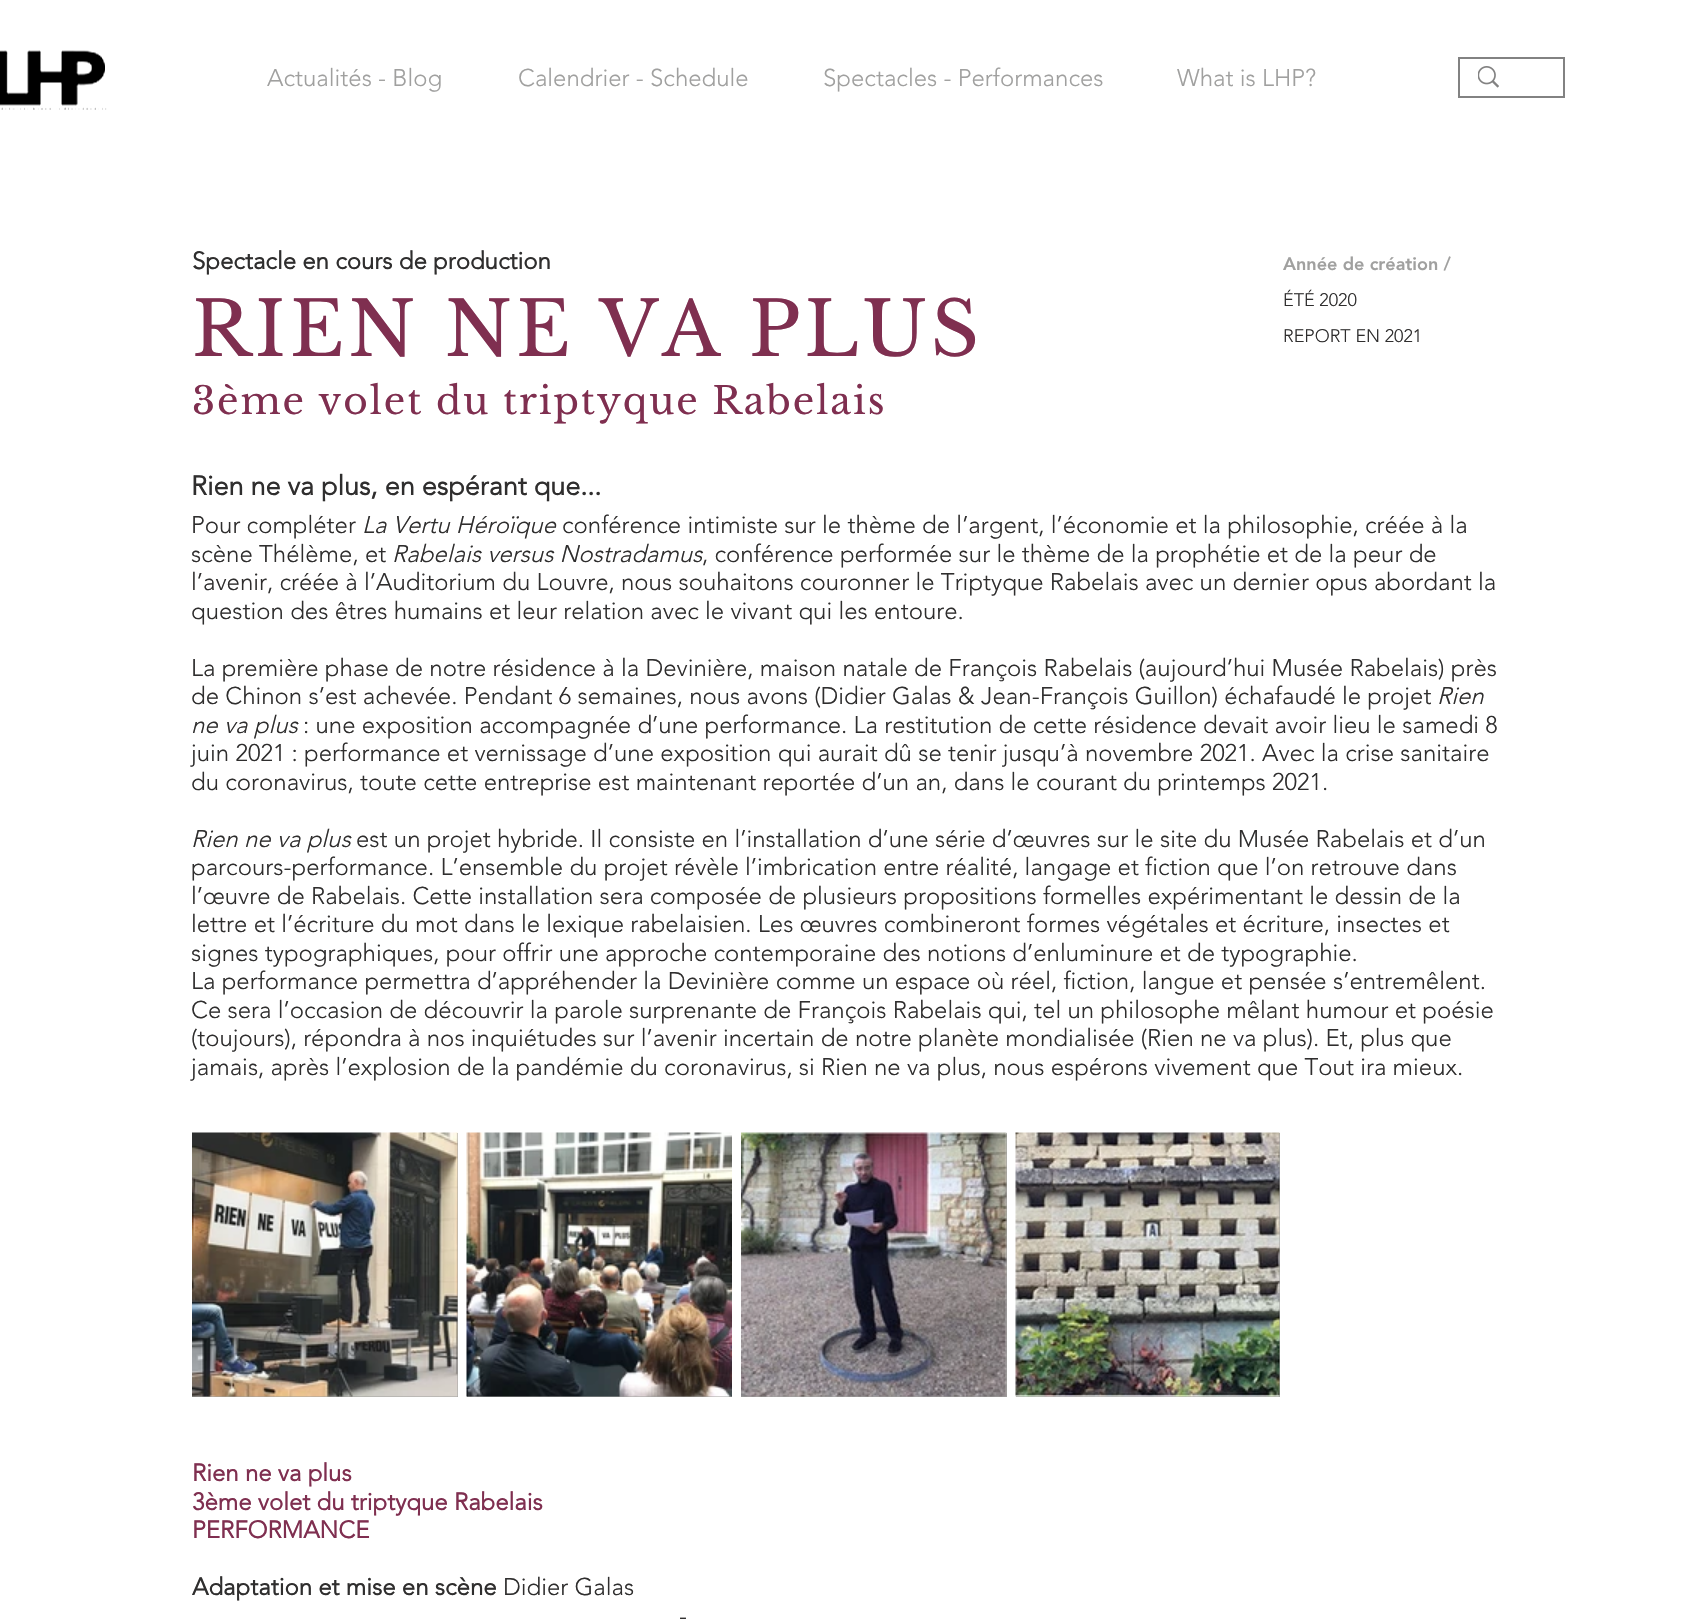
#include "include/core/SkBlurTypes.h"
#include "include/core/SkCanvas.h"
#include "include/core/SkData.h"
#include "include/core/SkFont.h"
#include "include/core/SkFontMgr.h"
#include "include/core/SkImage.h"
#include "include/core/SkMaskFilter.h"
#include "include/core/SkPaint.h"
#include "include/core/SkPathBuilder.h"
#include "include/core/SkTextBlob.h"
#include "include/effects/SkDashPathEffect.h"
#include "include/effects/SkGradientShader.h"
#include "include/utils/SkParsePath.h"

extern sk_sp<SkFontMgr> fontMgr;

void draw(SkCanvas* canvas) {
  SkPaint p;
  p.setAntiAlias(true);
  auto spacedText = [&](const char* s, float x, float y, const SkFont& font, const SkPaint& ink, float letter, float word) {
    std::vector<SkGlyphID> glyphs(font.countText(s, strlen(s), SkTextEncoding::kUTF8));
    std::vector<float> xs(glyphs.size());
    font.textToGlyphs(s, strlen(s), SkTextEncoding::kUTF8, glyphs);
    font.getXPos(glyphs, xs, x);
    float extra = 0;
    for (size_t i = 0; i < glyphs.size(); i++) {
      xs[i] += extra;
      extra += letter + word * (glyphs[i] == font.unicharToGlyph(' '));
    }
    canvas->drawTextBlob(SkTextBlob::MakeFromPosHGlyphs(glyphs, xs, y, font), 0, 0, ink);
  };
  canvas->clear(SK_ColorWHITE);
  canvas->drawImageRect(SkImages::DeferredFromEncodedData(SkData::MakeFromFileName("images/1.png")), SkRect::MakeLTRB(0, 50, 107, 110), SkSamplingOptions());
  p.setStyle(SkPaint::kStroke_Style);
  p.setStrokeWidth(2);
  p.setColor(SkColorSetRGB(130, 130, 130));
  canvas->drawRect(SkRect::MakeLTRB(1459, 58, 1564, 97), p);
  canvas->drawImageRect(SkImages::DeferredFromEncodedData(SkData::MakeFromFileName("images/2.png")), SkRect::MakeLTRB(1478, 66, 1499, 88), SkSamplingOptions());
  p.setStyle(SkPaint::kFill_Style);
  p.setColor(SkColorSetRGB(160, 160, 159));
  canvas->drawRect(SkRect::MakeLTRB(192, 1133, 458, 1397), p);
  canvas->drawImageRect(SkImages::DeferredFromEncodedData(SkData::MakeFromFileName("images/3.png")), SkRect::MakeLTRB(192, 1132, 458, 1397), SkSamplingOptions());
  canvas->drawRect(SkRect::MakeLTRB(467, 1396, 732, 1397), p);
  canvas->drawImageRect(SkImages::DeferredFromEncodedData(SkData::MakeFromFileName("images/4.png")), SkRect::MakeLTRB(466, 1132, 732, 1397), SkSamplingOptions());
  canvas->drawRect(SkRect::MakeLTRB(741, 1133, 1007, 1397), p);
  canvas->drawImageRect(SkImages::DeferredFromEncodedData(SkData::MakeFromFileName("images/5.png")), SkRect::MakeLTRB(741, 1132, 1007, 1397), SkSamplingOptions());
  canvas->drawRect(SkRect::MakeLTRB(1016, 1133, 1280, 1397), p);
  canvas->drawImageRect(SkImages::DeferredFromEncodedData(SkData::MakeFromFileName("images/6.png")), SkRect::MakeLTRB(1015, 1132, 1280, 1397), SkSamplingOptions());
  SkFont font1(fontMgr->matchFamilyStyle("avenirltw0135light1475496", SkFontStyle(300, SkFontStyle::kNormal_Width, SkFontStyle::kUpright_Slant)), 24);
  font1.setSubpixel(true);
  canvas->drawString("Actualités - Blog", 267, 86, font1, p);
  canvas->drawString("Calendrier - Schedule", 518, 86, font1, p);
  canvas->drawString("Spectacles - Performances", 823, 86, font1, p);
  canvas->drawString("What is LHP?", 1177, 86, font1, p);
  SkFont font2(fontMgr->matchFamilyStyle("avenirltw0135light1475496", SkFontStyle::Bold()), 24);
  font2.setSubpixel(true);
  p.setColor(SkColorSetRGB(47, 46, 46));
  canvas->drawString("Spectacle en cours de production", 192, 269, font2, p);
  SkFont font3(fontMgr->matchFamilyStyle("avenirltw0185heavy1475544", SkFontStyle(900, SkFontStyle::kNormal_Width, SkFontStyle::kUpright_Slant)), 18);
  font3.setSubpixel(true);
  p.setColor(SkColorSetRGB(160, 160, 159));
  canvas->drawString("Année de création /", 1283, 270, font3, p);
  SkFont font4(fontMgr->matchFamilyStyle("avenirltw0135light1475496", SkFontStyle(300, SkFontStyle::kNormal_Width, SkFontStyle::kUpright_Slant)), 18);
  font4.setSubpixel(true);
  p.setColor(SkColorSetRGB(47, 46, 46));
  canvas->drawString("ÉTÉ 2020", 1283, 306, font4, p);
  canvas->drawString("REPORT EN 2021", 1283, 342, font4, p);
  SkFont font5(fontMgr->matchFamilyStyle("Libre Baskerville", SkFontStyle::Normal()), 75);
  font5.setSubpixel(true);
  p.setColor(SkColorSetRGB(127, 47, 80));
  spacedText("RIEN NE VA PLUS", 192, 356, font5, p, 3.75f, 0);
  SkFont font6(fontMgr->matchFamilyStyle("Libre Baskerville", SkFontStyle::Normal()), 37.5f);
  font6.setSubpixel(true);
  spacedText("3ème volet du triptyque Rabelais", 192, 414, font6, p, 1.9f, 0);
  SkFont font7(fontMgr->matchFamilyStyle("avenirltw0135light1475496", SkFontStyle::Bold()), 27);
  font7.setSubpixel(true);
  p.setColor(SkColorSetRGB(47, 46, 46));
  canvas->drawString("Rien ne va plus, en espérant que...", 191, 495, font7, p);
  canvas->drawString("Pour compléter", 191, 533, font1, p);
  SkFont font8(fontMgr->matchFamilyStyle("avenirltw0135light1475496", SkFontStyle(300, SkFontStyle::kNormal_Width, SkFontStyle::kItalic_Slant)), 24);
  font8.setSubpixel(true);
  canvas->drawString("La Vertu Héroïque", 362, 533, font8, p);
  canvas->drawString("conférence intimiste sur le thème de l’argent, l’économie et la philosophie, créée à la", 562, 533, font1, p);
  canvas->drawString("scène Thélème, et", 191, 562, font1, p);
  canvas->drawString("Rabelais versus Nostradamus", 392, 562, font8, p);
  canvas->drawString(", conférence performée sur le thème de la prophétie et de la peur de", 702, 562, font1, p);
  canvas->drawString("l’avenir, créée à l’Auditorium du Louvre, nous souhaitons couronner le Triptyque Rabelais avec un dernier opus abordant la", 191, 590, font1, p);
  canvas->drawString("question des êtres humains et leur relation avec le vivant qui les entoure.", 191, 619, font1, p);
  canvas->drawString("La première phase de notre résidence à la Devinière, maison natale de François Rabelais (aujourd’hui Musée Rabelais) près", 191, 676, font1, p);
  canvas->drawString("de Chinon s’est achevée. Pendant 6 semaines, nous avons (Didier Galas & Jean-François Guillon) échafaudé le projet", 191, 704, font1, p);
  canvas->drawString("Rien", 1437, 704, font8, p);
  canvas->drawString("ne va plus", 191, 733, font8, p);
  canvas->drawString(": une exposition accompagnée d’une performance. La restitution de cette résidence devait avoir lieu le samedi 8", 303, 733, font1, p);
  canvas->drawString("juin 2021 : performance et vernissage d’une exposition qui aurait dû se tenir jusqu’à novembre 2021. Avec la crise sanitaire", 191, 761, font1, p);
  canvas->drawString("du coronavirus, toute cette entreprise est maintenant reportée d’un an, dans le courant du printemps 2021.", 191, 790, font1, p);
  canvas->drawString("Rien ne va plus", 191, 847, font8, p);
  canvas->drawString("est un projet hybride. Il consiste en l’installation d’une série d’œuvres sur le site du Musée Rabelais et d’un", 356, 847, font1, p);
  canvas->drawString("parcours-performance. L’ensemble du projet révèle l’imbrication entre réalité, langage et fiction que l’on retrouve dans", 191, 875, font1, p);
  canvas->drawString("l’œuvre de Rabelais. Cette installation sera composée de plusieurs propositions formelles expérimentant le dessin de la", 191, 904, font1, p);
  canvas->drawString("lettre et l’écriture du mot dans le lexique rabelaisien. Les œuvres combineront formes végétales et écriture, insectes et", 191, 932, font1, p);
  canvas->drawString("signes typographiques, pour offrir une approche contemporaine des notions d’enluminure et de typographie.", 191, 961, font1, p);
  canvas->drawString("La performance permettra d’appréhender la Devinière comme un espace où réel, fiction, langue et pensée s’entremêlent.", 191, 989, font1, p);
  canvas->drawString("Ce sera l’occasion de découvrir la parole surprenante de François Rabelais qui, tel un philosophe mêlant humour et poésie", 191, 1018, font1, p);
  canvas->drawString("(toujours), répondra à nos inquiétudes sur l’avenir incertain de notre planète mondialisée (Rien ne va plus). Et, plus que", 191, 1046, font1, p);
  canvas->drawString("jamais, après l’explosion de la pandémie du coronavirus, si Rien ne va plus, nous espérons vivement que Tout ira mieux.", 191, 1075, font1, p);
  p.setColor(SkColorSetRGB(127, 47, 80));
  canvas->drawString("Rien ne va plus", 192, 1481, font2, p);
  canvas->drawString("3ème volet du triptyque Rabelais", 192, 1510, font2, p);
  canvas->drawString("PERFORMANCE", 192, 1538, font2, p);
  p.setColor(SkColorSetRGB(47, 46, 46));
  canvas->drawString("Adaptation et mise en scène", 192, 1595, font2, p);
  canvas->drawString("Didier Galas", 503, 1595, font1, p);
  canvas->drawString("-", 679, 1624, font1, p);
}
